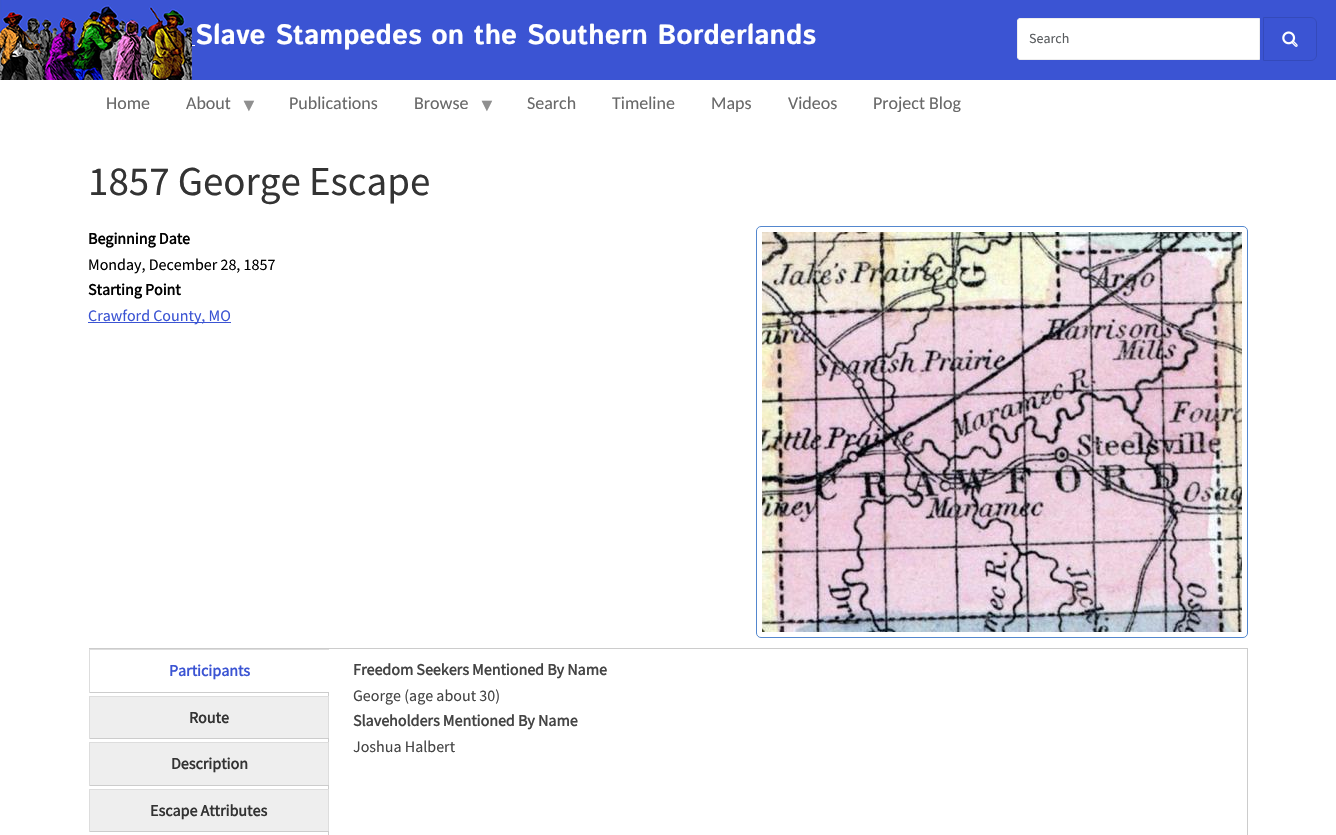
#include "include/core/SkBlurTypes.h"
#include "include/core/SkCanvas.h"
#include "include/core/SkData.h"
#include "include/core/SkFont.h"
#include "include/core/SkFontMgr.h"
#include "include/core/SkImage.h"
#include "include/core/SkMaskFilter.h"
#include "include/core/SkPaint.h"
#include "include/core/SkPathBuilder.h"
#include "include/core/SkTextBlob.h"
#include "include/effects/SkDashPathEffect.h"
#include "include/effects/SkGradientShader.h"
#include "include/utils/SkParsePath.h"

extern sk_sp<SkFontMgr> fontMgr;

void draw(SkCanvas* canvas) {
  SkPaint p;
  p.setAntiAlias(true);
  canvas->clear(SK_ColorWHITE);
  p.setColor(SkColorSetRGB(59, 84, 211));
  canvas->drawRect(SkRect::MakeLTRB(192, 0, 1336, 80), p);
  canvas->drawImageRect(SkImages::DeferredFromEncodedData(SkData::MakeFromFileName("images/1.png")), SkRect::MakeLTRB(0, 0, 192, 80), SkSamplingOptions());
  p.setColor(SK_ColorWHITE);
  canvas->drawRect(SkRect::MakeLTRB(192, 45, 195, 46), p);
  canvas->drawPath(SkPathBuilder().moveTo(1020, 18.5f).lineTo(1259.5f, 18.5f).lineTo(1259.5f, 59.5f).lineTo(1020, 59.5f).cubicTo(1018.5f, 59.5f, 1017.5f, 58.5f, 1017.5f, 57).lineTo(1017.5f, 21).cubicTo(1017.5f, 19.5f, 1018.5f, 18.5f, 1020, 18.5f).close().detach(), p);
  p.setStyle(SkPaint::kStroke_Style);
  p.setStrokeWidth(1);
  p.setColor(SkColorSetRGB(237, 237, 237));
  canvas->drawPath(SkPathBuilder().moveTo(1020, 18.5f).lineTo(1259.5f, 18.5f).lineTo(1259.5f, 59.5f).lineTo(1020, 59.5f).cubicTo(1018.5f, 59.5f, 1017.5f, 58.5f, 1017.5f, 57).lineTo(1017.5f, 21).cubicTo(1017.5f, 19.5f, 1018.5f, 18.5f, 1020, 18.5f).close().detach(), p);
  p.setColor(SkColorSetRGB(52, 74, 186));
  canvas->drawPath(SkPathBuilder().moveTo(1263.5f, 17.5f).lineTo(1311, 17.5f).cubicTo(1314, 17.5f, 1316.5f, 20, 1316.5f, 23).lineTo(1316.5f, 55).cubicTo(1316.5f, 58, 1314, 60.5f, 1311, 60.5f).lineTo(1263.5f, 60.5f).close().detach(), p);
  canvas->drawImageRect(SkImages::DeferredFromEncodedData(SkData::MakeFromFileName("images/2.png")), SkRect::MakeLTRB(1282, 31, 1298, 47), SkSamplingOptions());
  p.setStyle(SkPaint::kFill_Style);
  p.setColor(SkColorSetRGB(59, 84, 211));
  canvas->drawRect(SkRect::MakeLTRB(88, 322, 231, 323), p);
  p.setStyle(SkPaint::kStroke_Style);
  p.setColor(SkColorSetRGB(83, 135, 206));
  canvas->drawRoundRect(SkRect::MakeLTRB(756.5f, 226.5f, 1247.5f, 637.5f), 4.5f, 4.5f, p);
  canvas->drawImageRect(SkImages::DeferredFromEncodedData(SkData::MakeFromFileName("images/3.png")), SkRect::MakeLTRB(762, 232, 1242, 632), SkSamplingOptions());
  p.setColor(SkColorSetRGB(204, 204, 204));
  canvas->drawRect(SkRect::MakeLTRB(328.5f, 648.5f, 1247.5f, 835.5f), p);
  p.setStyle(SkPaint::kFill_Style);
  canvas->drawRect(SkRect::MakeLTRB(89, 648, 329, 649), p);
  p.setColor(SK_ColorWHITE);
  canvas->drawRect(SkRect::MakeLTRB(328, 650, 329, 692), p);
  p.setColor(SkColorSetRGB(221, 221, 221));
  canvas->drawRect(SkRect::MakeLTRB(89, 649, 329, 650), p);
  p.setColor(SkColorSetRGB(204, 204, 204));
  canvas->drawRect(SkRect::MakeLTRB(89, 692, 329, 693), p);
  p.setColor(SkColorSetRGB(221, 221, 221));
  canvas->drawRect(SkRect::MakeLTRB(89, 649, 90, 693), p);
  p.setColor(SkColorSetRGB(238, 238, 238));
  canvas->drawRect(SkRect::MakeLTRB(90, 697, 328, 738), p);
  p.setColor(SkColorSetRGB(221, 221, 221));
  canvas->drawRect(SkRect::MakeLTRB(89, 696, 329, 697), p);
  canvas->drawRect(SkRect::MakeLTRB(328, 696, 329, 739), p);
  p.setColor(SkColorSetRGB(204, 204, 204));
  canvas->drawRect(SkRect::MakeLTRB(89, 738, 329, 739), p);
  p.setColor(SkColorSetRGB(221, 221, 221));
  canvas->drawRect(SkRect::MakeLTRB(89, 696, 90, 739), p);
  p.setColor(SkColorSetRGB(238, 238, 238));
  canvas->drawRect(SkRect::MakeLTRB(90, 743, 328, 785), p);
  p.setColor(SkColorSetRGB(221, 221, 221));
  canvas->drawRect(SkRect::MakeLTRB(89, 742, 329, 743), p);
  canvas->drawRect(SkRect::MakeLTRB(328, 742, 329, 786), p);
  p.setColor(SkColorSetRGB(204, 204, 204));
  canvas->drawRect(SkRect::MakeLTRB(89, 785, 329, 786), p);
  p.setColor(SkColorSetRGB(221, 221, 221));
  canvas->drawRect(SkRect::MakeLTRB(89, 742, 90, 786), p);
  p.setColor(SkColorSetRGB(238, 238, 238));
  canvas->drawRect(SkRect::MakeLTRB(90, 790, 328, 831), p);
  p.setColor(SkColorSetRGB(221, 221, 221));
  canvas->drawRect(SkRect::MakeLTRB(89, 789, 329, 790), p);
  canvas->drawRect(SkRect::MakeLTRB(328, 789, 329, 832), p);
  p.setColor(SkColorSetRGB(204, 204, 204));
  canvas->drawRect(SkRect::MakeLTRB(89, 831, 329, 832), p);
  p.setColor(SkColorSetRGB(221, 221, 221));
  canvas->drawRect(SkRect::MakeLTRB(89, 789, 90, 832), p);
  SkFont font1(fontMgr->matchFamilyStyle("Istok Web", SkFontStyle::Bold()), 28);
  font1.setSubpixel(true);
  p.setColor(SK_ColorWHITE);
  canvas->drawString("Slave Stampedes on the Southern Borderlands", 195, 44, font1, p);
  SkFont font2(fontMgr->matchFamilyStyle("Source Sans Pro", SkFontStyle::Normal()), 14);
  font2.setSubpixel(true);
  p.setColor(SkColorSetRGB(89, 92, 95));
  canvas->drawString("Search", 1029, 43, font2, p);
  SkFont font3(fontMgr->matchFamilyStyle("Carlito", SkFontStyle::Normal()), 18);
  font3.setSubpixel(true);
  p.setColor(SkColorSetRGB(105, 105, 105));
  canvas->drawString("Home", 106, 109, font3, p);
  canvas->drawString("About", 186, 109, font3, p);
  SkFont font4(fontMgr->matchFamilyStyle("Liberation Sans", SkFontStyle::Normal()), 18);
  font4.setSubpixel(true);
  p.setColor(SkColorSetRGB(143, 143, 143));
  canvas->drawString("▼", 240, 111, font4, p);
  p.setColor(SkColorSetRGB(105, 105, 105));
  canvas->drawString("Publications", 289, 109, font3, p);
  canvas->drawString("Browse", 414, 109, font3, p);
  p.setColor(SkColorSetRGB(143, 143, 143));
  canvas->drawString("▼", 478, 111, font4, p);
  p.setColor(SkColorSetRGB(105, 105, 105));
  canvas->drawString("Search", 527, 109, font3, p);
  canvas->drawString("Timeline", 612, 109, font3, p);
  canvas->drawString("Maps", 711, 109, font3, p);
  canvas->drawString("Videos", 788, 109, font3, p);
  canvas->drawString("Project Blog", 873, 109, font3, p);
  SkFont font5(fontMgr->matchFamilyStyle("Source Sans Pro", SkFontStyle::Normal()), 41);
  font5.setSubpixel(true);
  p.setColor(SkColorSetRGB(51, 51, 51));
  canvas->drawString("1857 George Escape", 88, 195, font5, p);
  SkFont font6(fontMgr->matchFamilyStyle("Source Sans Pro", SkFontStyle::Bold()), 16);
  font6.setSubpixel(true);
  p.setColor(SK_ColorBLACK);
  canvas->drawString("Beginning Date", 88, 244, font6, p);
  SkFont font7(fontMgr->matchFamilyStyle("Source Sans Pro", SkFontStyle::Normal()), 16);
  font7.setSubpixel(true);
  canvas->drawString("Monday, December 28, 1857", 88, 270, font7, p);
  canvas->drawString("Starting Point", 88, 295, font6, p);
  p.setColor(SkColorSetRGB(59, 84, 211));
  canvas->drawString("Crawford County, MO", 88, 321, font7, p);
  canvas->drawString("Participants", 169, 676, font6, p);
  p.setColor(SkColorSetRGB(51, 51, 51));
  canvas->drawString("Route", 189, 723, font6, p);
  canvas->drawString("Description", 171, 769, font6, p);
  canvas->drawString("Escape Attributes", 150, 816, font6, p);
  p.setColor(SkColorSetRGB(68, 68, 68));
  canvas->drawString("Freedom Seekers Mentioned By Name", 353, 675, font6, p);
  canvas->drawString("George (age about 30)", 353, 701, font7, p);
  canvas->drawString("Slaveholders Mentioned By Name", 353, 726, font6, p);
  canvas->drawString("Joshua Halbert", 353, 752, font7, p);
}
